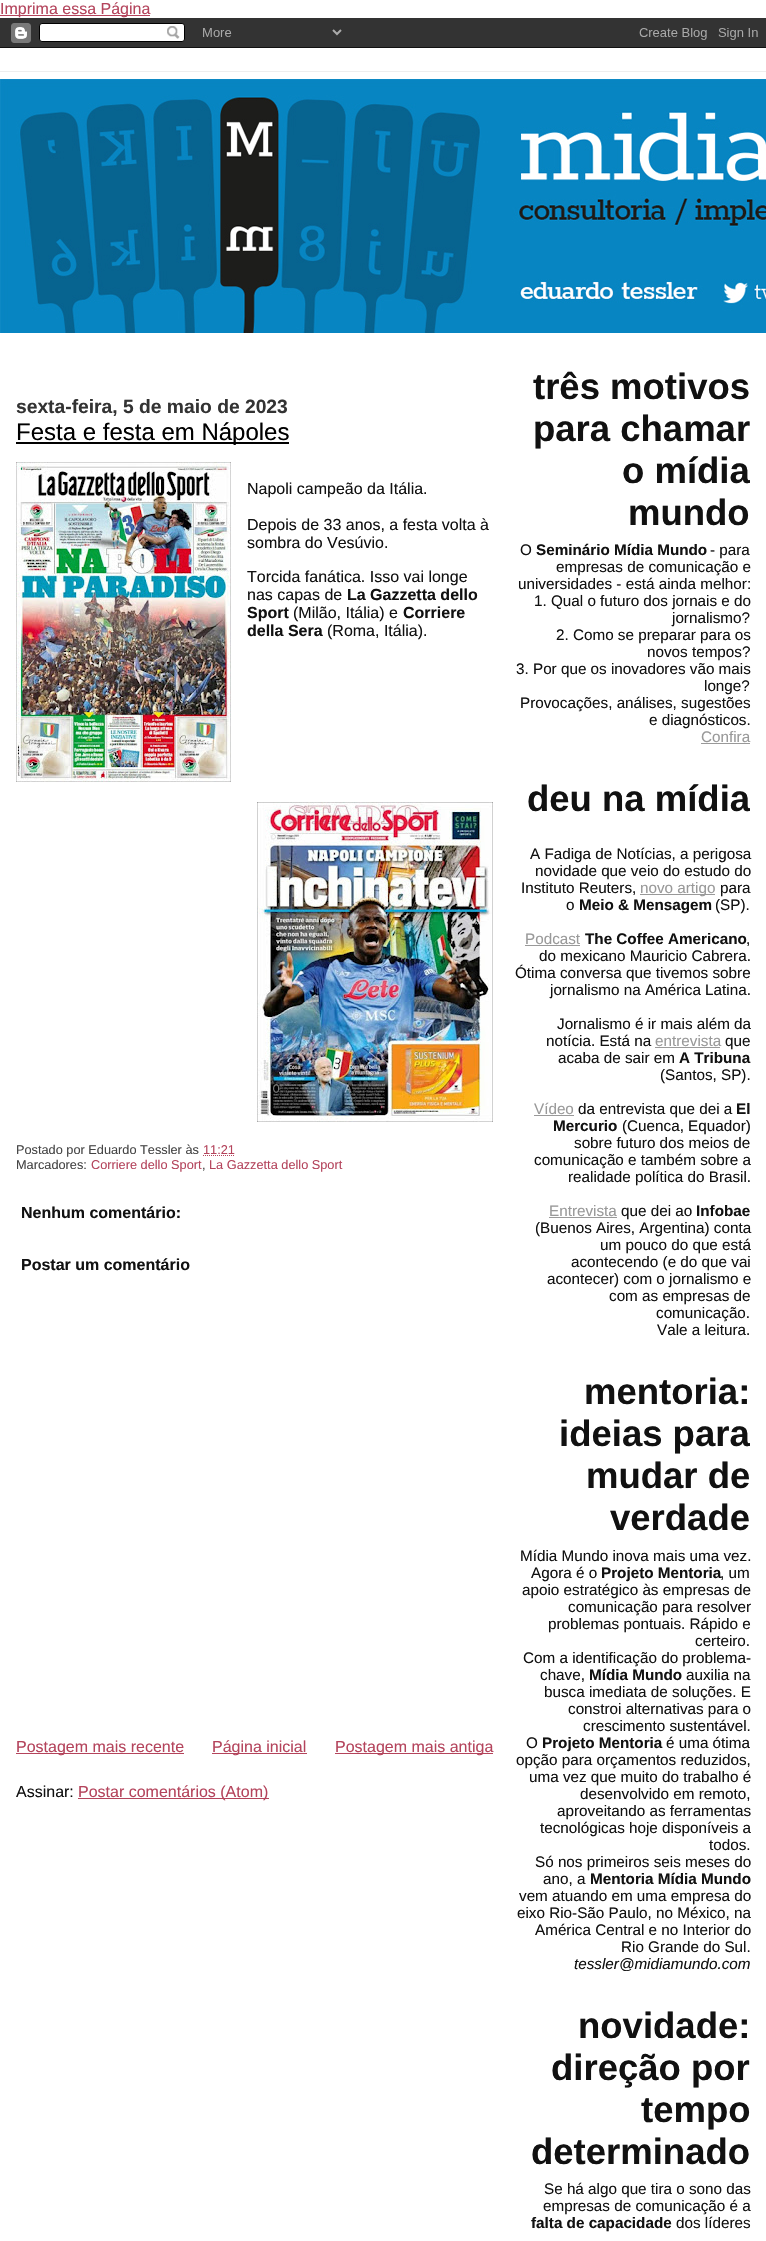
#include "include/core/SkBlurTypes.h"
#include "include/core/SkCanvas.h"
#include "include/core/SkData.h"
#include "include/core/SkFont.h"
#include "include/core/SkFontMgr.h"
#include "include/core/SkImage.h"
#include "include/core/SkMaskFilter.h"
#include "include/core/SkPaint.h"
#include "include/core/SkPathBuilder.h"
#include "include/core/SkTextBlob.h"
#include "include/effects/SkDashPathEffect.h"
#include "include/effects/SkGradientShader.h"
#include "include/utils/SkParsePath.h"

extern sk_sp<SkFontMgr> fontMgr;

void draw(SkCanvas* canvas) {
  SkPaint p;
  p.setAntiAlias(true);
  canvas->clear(SK_ColorWHITE);
  p.setColor(SkColorSetRGB(180, 68, 92));
  canvas->drawRect(SkRect::MakeLTRB(0, 15, 150, 16), p);
  canvas->drawImageRect(SkImages::DeferredFromEncodedData(SkData::MakeFromFileName("images/1.png")), SkRect::MakeLTRB(0, 18, 766, 48), SkSamplingOptions());
  p.setColor(SkColorSetRGB(238, 238, 238));
  canvas->drawRect(SkRect::MakeLTRB(0, 71, 766, 72), p);
  canvas->drawImageRect(SkImages::DeferredFromEncodedData(SkData::MakeFromFileName("images/2.png")), SkRect::MakeLTRB(0, 79, 766, 333), SkSamplingOptions());
  p.setColor(SK_ColorBLACK);
  canvas->drawRect(SkRect::MakeLTRB(16, 442, 289, 444), p);
  canvas->drawImageRect(SkImages::DeferredFromEncodedData(SkData::MakeFromFileName("images/3.png")), SkRect::MakeLTRB(16, 462, 231, 782), SkSamplingOptions());
  canvas->drawImageRect(SkImages::DeferredFromEncodedData(SkData::MakeFromFileName("images/4.png")), SkRect::MakeLTRB(257, 802, 493, 1122), SkSamplingOptions());
  p.setStyle(SkPaint::kStroke_Style);
  p.setStrokeWidth(1);
  p.setColor(SkColorSetRGB(180, 68, 92));
  p.setPathEffect(SkDashPathEffect::Make({{1, 1}}, 0));
  canvas->drawPath(SkPathBuilder().moveTo(203, 1155.5f).lineTo(235, 1155.5f).detach(), p);
  p.setPathEffect(nullptr);
  p.setStyle(SkPaint::kFill_Style);
  canvas->drawRect(SkRect::MakeLTRB(16, 1753, 184, 1754), p);
  canvas->drawRect(SkRect::MakeLTRB(212, 1753, 307, 1754), p);
  canvas->drawRect(SkRect::MakeLTRB(335, 1753, 493, 1754), p);
  canvas->drawRect(SkRect::MakeLTRB(78, 1798, 269, 1799), p);
  p.setColor(SkColorSetRGB(153, 153, 153));
  canvas->drawRect(SkRect::MakeLTRB(701, 743, 750, 744), p);
  canvas->drawRect(SkRect::MakeLTRB(640, 894, 715, 895), p);
  canvas->drawRect(SkRect::MakeLTRB(525, 945, 580, 946), p);
  canvas->drawRect(SkRect::MakeLTRB(655, 1047, 720, 1048), p);
  canvas->drawRect(SkRect::MakeLTRB(534, 1115, 574, 1116), p);
  canvas->drawRect(SkRect::MakeLTRB(549, 1217, 617, 1218), p);
  SkFont font1(fontMgr->matchFamilyStyle("Liberation Sans", SkFontStyle::Normal()), 16);
  font1.setSubpixel(true);
  p.setColor(SkColorSetRGB(180, 68, 92));
  canvas->drawString("Imprima essa Página", 0, 14, font1, p);
  SkFont font2(fontMgr->matchFamilyStyle("Liberation Sans", SkFontStyle::Bold()), 19.25f);
  font2.setSubpixel(true);
  p.setColor(SkColorSetRGB(51, 51, 51));
  canvas->drawString("sexta-feira, 5 de maio de 2023", 16, 413, font2, p);
  SkFont font3(fontMgr->matchFamilyStyle("Liberation Sans", SkFontStyle::Normal()), 24);
  font3.setSubpixel(true);
  p.setColor(SK_ColorBLACK);
  canvas->drawString("Festa e festa em Nápoles", 16, 440, font3, p);
  p.setColor(SkColorSetRGB(17, 17, 17));
  canvas->drawString("Napoli campeão da Itália.", 247, 494, font1, p);
  canvas->drawString("Depois de 33 anos, a festa volta à", 247, 530, font1, p);
  canvas->drawString("sombra do Vesúvio.", 247, 548, font1, p);
  canvas->drawString("Torcida fanática. Isso vai longe", 247, 582, font1, p);
  canvas->drawString("nas capas de", 247, 600, font1, p);
  SkFont font4(fontMgr->matchFamilyStyle("Liberation Sans", SkFontStyle::Bold()), 16);
  font4.setSubpixel(true);
  canvas->drawString("La Gazzetta dello", 347, 600, font4, p);
  canvas->drawString("Sport", 247, 618, font4, p);
  canvas->drawString("(Milão, Itália) e", 293, 618, font1, p);
  canvas->drawString("Corriere", 403, 618, font4, p);
  canvas->drawString("della Sera", 247, 636, font4, p);
  canvas->drawString("(Roma, Itália).", 327, 636, font1, p);
  SkFont font5(fontMgr->matchFamilyStyle("Liberation Sans", SkFontStyle::Normal()), 12.75f);
  font5.setSubpixel(true);
  p.setColor(SkColorSetRGB(68, 68, 68));
  canvas->drawString("Postado por Eduardo Tessler às", 16, 1154, font5, p);
  p.setColor(SkColorSetRGB(180, 68, 92));
  canvas->drawString("11:21", 203, 1154, font5, p);
  p.setColor(SkColorSetRGB(68, 68, 68));
  canvas->drawString("Marcadores:", 16, 1169, font5, p);
  p.setColor(SkColorSetRGB(180, 68, 92));
  canvas->drawString("Corriere dello Sport", 91, 1169, font5, p);
  p.setColor(SkColorSetRGB(68, 68, 68));
  canvas->drawString(",", 202, 1169, font5, p);
  p.setColor(SkColorSetRGB(180, 68, 92));
  canvas->drawString("La Gazzetta dello Sport", 209, 1169, font5, p);
  p.setColor(SkColorSetRGB(17, 17, 17));
  canvas->drawString("Nenhum comentário:", 21, 1218, font4, p);
  canvas->drawString("Postar um comentário", 21, 1270, font4, p);
  p.setColor(SkColorSetRGB(180, 68, 92));
  canvas->drawString("Postagem mais recente", 16, 1752, font1, p);
  canvas->drawString("Página inicial", 212, 1752, font1, p);
  canvas->drawString("Postagem mais antiga", 335, 1752, font1, p);
  p.setColor(SkColorSetRGB(17, 17, 17));
  canvas->drawString("Assinar:", 16, 1797, font1, p);
  p.setColor(SkColorSetRGB(180, 68, 92));
  canvas->drawString("Postar comentários (Atom)", 78, 1797, font1, p);
  SkFont font6(fontMgr->matchFamilyStyle("Liberation Sans", SkFontStyle::Bold()), 36.5f);
  font6.setSubpixel(true);
  p.setColor(SkColorSetRGB(17, 17, 17));
  canvas->drawString("três motivos", 533, 399, font6, p);
  canvas->drawString("para chamar", 533, 441, font6, p);
  canvas->save();
  canvas->clipRect(SkRect::MakeLTRB(515, 366, 750, 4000));
  canvas->drawString("o mídia", 622, 483, font6, p);
  canvas->restore();
  canvas->drawString("mundo", 628, 525, font6, p);
  SkFont font7(fontMgr->matchFamilyStyle("Liberation Sans", SkFontStyle::Normal()), 15.25f);
  font7.setSubpixel(true);
  canvas->drawString("O", 520, 555, font7, p);
  SkFont font8(fontMgr->matchFamilyStyle("Liberation Sans", SkFontStyle::Bold()), 15.25f);
  font8.setSubpixel(true);
  canvas->drawString("Seminário Mídia Mundo", 536, 555, font8, p);
  canvas->drawString("- para", 710, 555, font7, p);
  canvas->drawString("empresas de comunicação e", 556, 572, font7, p);
  canvas->drawString("universidades - está ainda melhor:", 518, 589, font7, p);
  canvas->drawString("1. Qual o futuro dos jornais e do", 534, 606, font7, p);
  canvas->drawString("jornalismo?", 672, 623, font7, p);
  canvas->drawString("2. Como se preparar para os", 556, 640, font7, p);
  canvas->drawString("novos tempos?", 647, 657, font7, p);
  canvas->drawString("3. Por que os inovadores vão mais", 516, 674, font7, p);
  canvas->drawString("longe?", 704, 691, font7, p);
  canvas->drawString("Provocações, análises, sugestões", 520, 708, font7, p);
  canvas->drawString("e diagnósticos.", 649, 725, font7, p);
  p.setColor(SkColorSetRGB(153, 153, 153));
  canvas->drawString("Confira", 701, 742, font7, p);
  canvas->save();
  canvas->clipRect(SkRect::MakeLTRB(515, 366, 750, 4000));
  p.setColor(SkColorSetRGB(17, 17, 17));
  canvas->drawString("deu na mídia", 527, 811, font6, p);
  canvas->restore();
  canvas->drawString("A Fadiga de Notícias, a perigosa", 530, 859, font7, p);
  canvas->drawString("novidade que veio do estudo do", 535, 876, font7, p);
  canvas->drawString("Instituto Reuters,", 521, 893, font7, p);
  p.setColor(SkColorSetRGB(153, 153, 153));
  canvas->drawString("novo artigo", 640, 893, font7, p);
  p.setColor(SkColorSetRGB(17, 17, 17));
  canvas->drawString("para", 720, 893, font7, p);
  canvas->drawString("o", 566, 910, font7, p);
  canvas->drawString("Meio & Mensagem", 579, 910, font8, p);
  canvas->drawString("(SP).", 715, 910, font7, p);
  p.setColor(SkColorSetRGB(153, 153, 153));
  canvas->drawString("Podcast", 525, 944, font7, p);
  p.setColor(SkColorSetRGB(17, 17, 17));
  canvas->drawString("The Coffee Americano", 585, 944, font8, p);
  canvas->drawString(",", 746, 944, font7, p);
  canvas->drawString("do mexicano Mauricio Cabrera.", 539, 961, font7, p);
  canvas->drawString("Ótima conversa que tivemos sobre", 515, 978, font7, p);
  canvas->drawString("jornalismo na América Latina.", 550, 995, font7, p);
  canvas->drawString("Jornalismo é ir mais além da", 557, 1029, font7, p);
  canvas->drawString("notícia. Está na", 546, 1046, font7, p);
  p.setColor(SkColorSetRGB(153, 153, 153));
  canvas->drawString("entrevista", 655, 1046, font7, p);
  p.setColor(SkColorSetRGB(17, 17, 17));
  canvas->drawString("que", 725, 1046, font7, p);
  canvas->drawString("acaba de sair em", 558, 1063, font7, p);
  canvas->drawString("A Tribuna", 679, 1063, font8, p);
  canvas->drawString("(Santos, SP).", 660, 1080, font7, p);
  p.setColor(SkColorSetRGB(153, 153, 153));
  canvas->drawString("Vídeo", 534, 1114, font7, p);
  p.setColor(SkColorSetRGB(17, 17, 17));
  canvas->drawString("da entrevista que dei a", 578, 1114, font7, p);
  canvas->drawString("El", 736, 1114, font8, p);
  canvas->drawString("Mercurio", 553, 1131, font8, p);
  canvas->drawString("(Cuenca, Equador)", 622, 1131, font7, p);
  canvas->drawString("sobre futuro dos meios de", 574, 1148, font7, p);
  canvas->drawString("comunicação e também sobre a", 534, 1165, font7, p);
  canvas->drawString("realidade política do Brasil.", 568, 1182, font7, p);
  p.setColor(SkColorSetRGB(153, 153, 153));
  canvas->drawString("Entrevista", 549, 1216, font7, p);
  p.setColor(SkColorSetRGB(17, 17, 17));
  canvas->drawString("que dei ao", 621, 1216, font7, p);
  canvas->drawString("Infobae", 696, 1216, font8, p);
  canvas->drawString("(Buenos Aires, Argentina) conta", 535, 1233, font7, p);
  canvas->drawString("um pouco do que está", 600, 1250, font7, p);
  canvas->drawString("acontecendo (e do que vai", 571, 1267, font7, p);
  canvas->drawString("acontecer) com o jornalismo e", 547, 1284, font7, p);
  canvas->drawString("com as empresas de", 609, 1301, font7, p);
  canvas->drawString("comunicação.", 656, 1318, font7, p);
  canvas->drawString("Vale a leitura.", 657, 1335, font7, p);
  canvas->drawString("mentoria:", 584, 1404, font6, p);
  canvas->save();
  canvas->clipRect(SkRect::MakeLTRB(515, 366, 750, 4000));
  canvas->drawString("ideias para", 559, 1446, font6, p);
  canvas->restore();
  canvas->drawString("mudar de", 586, 1488, font6, p);
  canvas->drawString("verdade", 610, 1530, font6, p);
  canvas->drawString("Mídia Mundo inova mais uma vez.", 520, 1561, font7, p);
  canvas->drawString("Agora é o", 531, 1578, font7, p);
  canvas->drawString("Projeto Mentoria", 601, 1578, font8, p);
  canvas->drawString(", um", 720, 1578, font7, p);
  canvas->drawString("apoio estratégico às empresas de", 522, 1595, font7, p);
  canvas->drawString("comunicação para resolver", 568, 1612, font7, p);
  canvas->drawString("problemas pontuais. Rápido e", 548, 1629, font7, p);
  canvas->drawString("certeiro.", 695, 1646, font7, p);
  canvas->drawString("Com a identificação do problema-", 523, 1663, font7, p);
  canvas->drawString("chave,", 540, 1680, font7, p);
  canvas->drawString("Mídia Mundo", 589, 1680, font8, p);
  canvas->drawString("auxilia na", 686, 1680, font7, p);
  canvas->drawString("busca imediata de soluções. E", 544, 1697, font7, p);
  canvas->drawString("constroi alternativas para o", 568, 1714, font7, p);
  canvas->drawString("crescimento sustentável.", 583, 1731, font7, p);
  canvas->drawString("O", 526, 1748, font7, p);
  canvas->drawString("Projeto Mentoria", 542, 1748, font8, p);
  canvas->drawString("é uma ótima", 666, 1748, font7, p);
  canvas->drawString("opção para orçamentos reduzidos,", 516, 1765, font7, p);
  canvas->drawString("uma vez que muito do trabalho é", 529, 1782, font7, p);
  canvas->drawString("desenvolvido em remoto,", 580, 1799, font7, p);
  canvas->drawString("aproveitando as ferramentas", 557, 1816, font7, p);
  canvas->drawString("tecnológicas hoje disponíveis a", 540, 1833, font7, p);
  canvas->drawString("todos.", 709, 1850, font7, p);
  canvas->drawString("Só nos primeiros seis meses do", 535, 1867, font7, p);
  canvas->drawString("ano, a", 543, 1884, font7, p);
  canvas->drawString("Mentoria Mídia Mundo", 590, 1884, font8, p);
  canvas->drawString("vem atuando em uma empresa do", 519, 1901, font7, p);
  canvas->drawString("eixo Rio-São Paulo, no México, na", 517, 1918, font7, p);
  canvas->drawString("América Central e no Interior do", 535, 1935, font7, p);
  canvas->drawString("Rio Grande do Sul.", 621, 1952, font7, p);
  SkFont font9(fontMgr->matchFamilyStyle("Liberation Sans", SkFontStyle::Italic()), 15.25f);
  font9.setSubpixel(true);
  canvas->drawString("tessler@midiamundo.com", 574, 1969, font9, p);
  canvas->drawString("novidade:", 578, 2038, font6, p);
  canvas->drawString("direção por", 551, 2080, font6, p);
  canvas->drawString("tempo", 641, 2122, font6, p);
  canvas->drawString("determinado", 531, 2164, font6, p);
  canvas->drawString("Se há algo que tira o sono das", 544, 2194, font7, p);
  canvas->drawString("empresas de comunicação é a", 543, 2211, font7, p);
  canvas->drawString("falta de capacidade", 531, 2228, font8, p);
  canvas->drawString("dos líderes", 676, 2228, font7, p);
}
